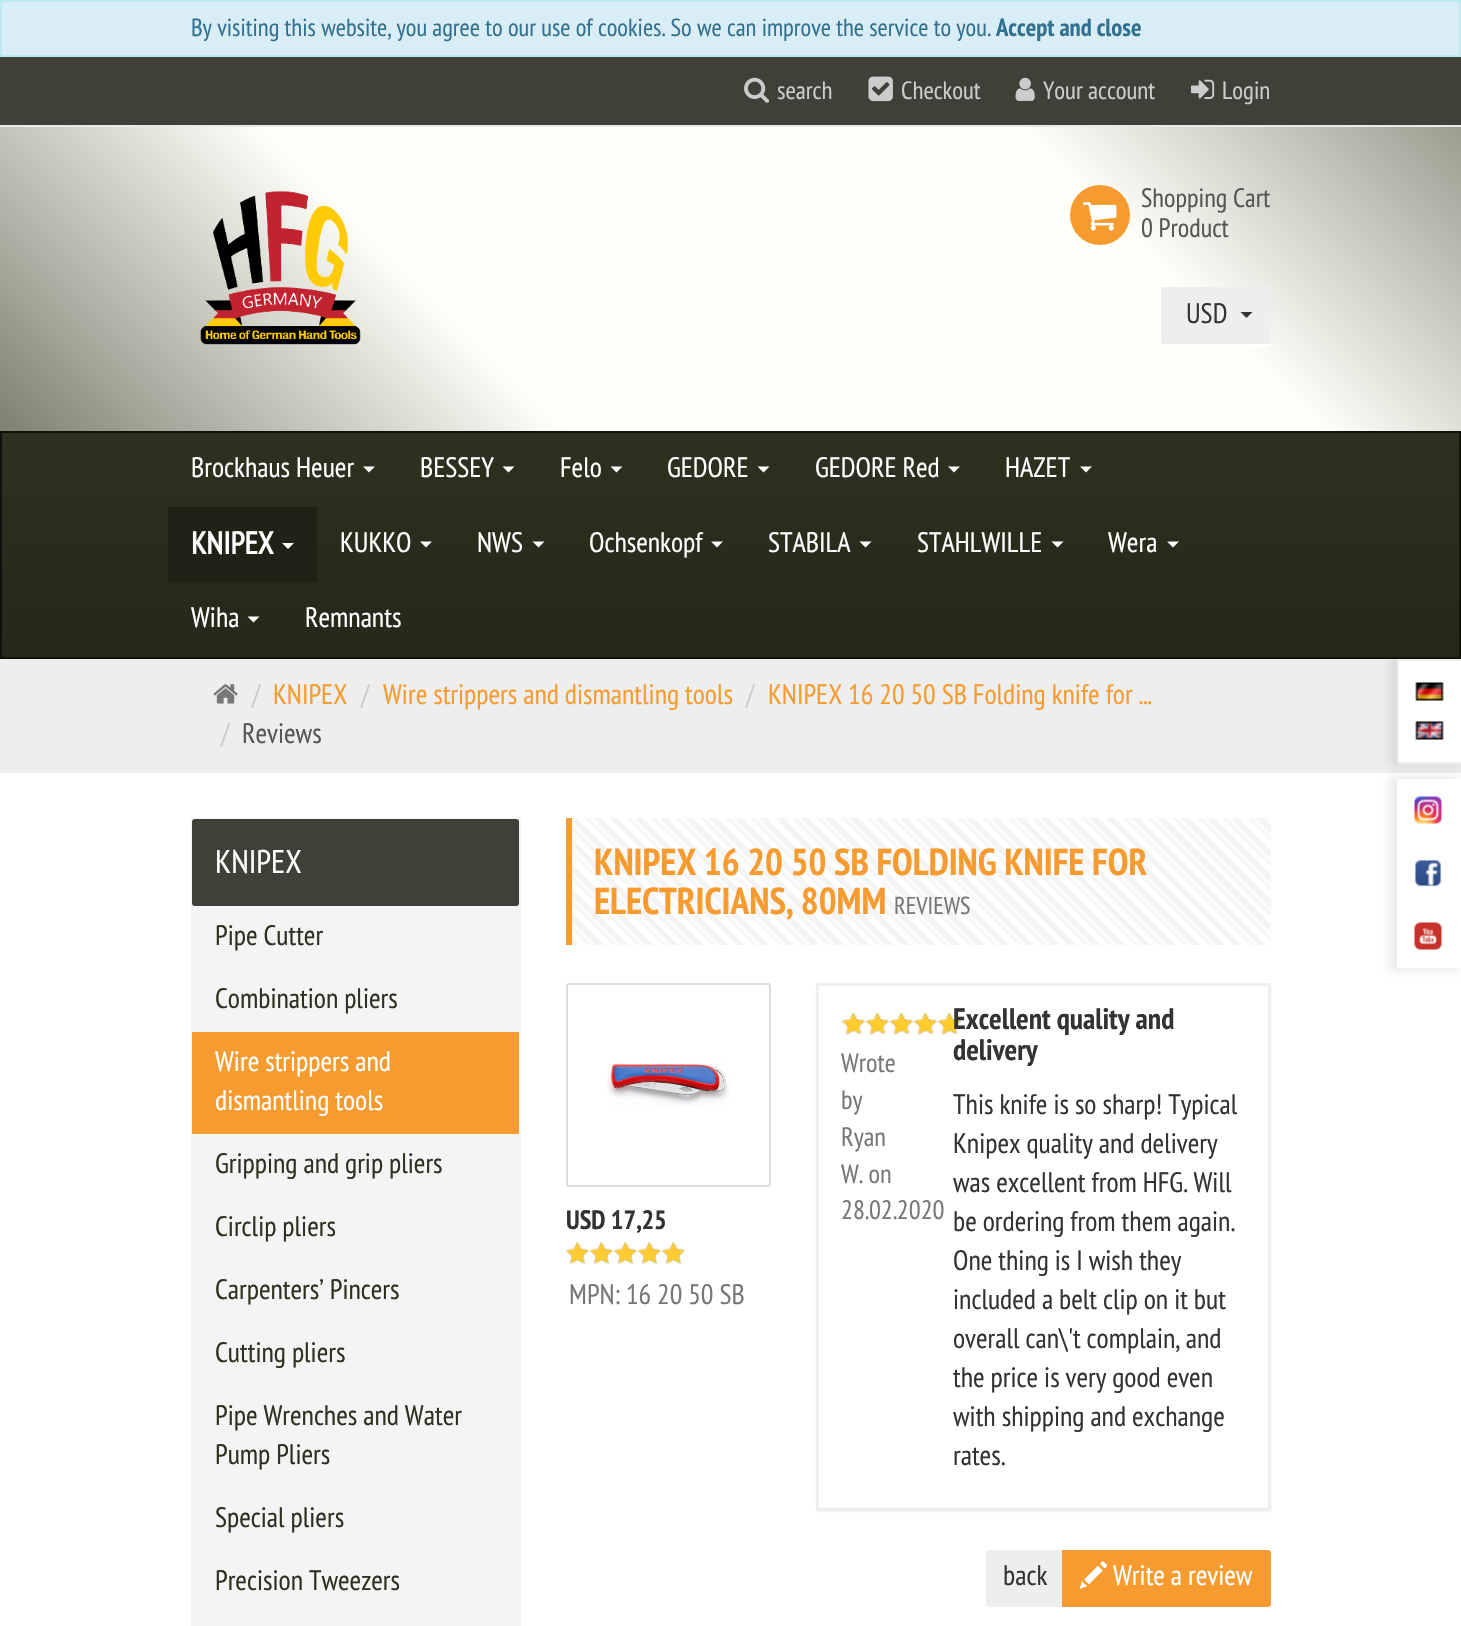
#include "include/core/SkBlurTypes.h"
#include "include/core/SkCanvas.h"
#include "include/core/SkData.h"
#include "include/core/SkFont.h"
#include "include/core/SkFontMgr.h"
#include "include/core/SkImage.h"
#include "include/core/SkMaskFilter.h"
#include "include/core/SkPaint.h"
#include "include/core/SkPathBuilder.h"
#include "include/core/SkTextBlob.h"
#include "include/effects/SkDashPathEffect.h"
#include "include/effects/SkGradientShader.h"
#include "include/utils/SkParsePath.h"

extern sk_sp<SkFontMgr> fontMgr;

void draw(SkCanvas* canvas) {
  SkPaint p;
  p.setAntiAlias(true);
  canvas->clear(SK_ColorWHITE);
  {
    const SkColor colors[] = {SkColorSetRGB(128, 128, 112), SkColorSetRGB(255, 255, 250), SkColorSetRGB(255, 255, 250), SkColorSetRGB(128, 128, 112)};
    const float stops[] = {0, 0.3f, 0.7f, 1};
    const SkPoint ends[] = {{258, 688}, {1203, -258}};
    p.setShader(SkGradientShader::MakeLinear(ends, colors, stops, 4, SkTileMode::kClamp));
    p.setAlpha(255);
  }
  canvas->drawRect(SkRect::MakeLTRB(0, 127, 1461, 431), p);
  p.setShader(nullptr);
  p.setColor(SkColorSetRGB(217, 237, 247));
  canvas->drawRect(SkRect::MakeLTRB(1, 1, 1460, 56), p);
  p.setStyle(SkPaint::kStroke_Style);
  p.setStrokeWidth(2);
  p.setColor(SkColorSetRGB(188, 232, 241));
  canvas->drawRect(SkRect::MakeLTRB(1, 1, 1460, 56), p);
  p.setStyle(SkPaint::kFill_Style);
  p.setColor(SkColorSetRGB(64, 64, 56));
  canvas->drawRect(SkRect::MakeLTRB(0, 57, 1461, 125), p);
  p.setColor(SkColorSetRGB(233, 233, 233));
  canvas->drawRect(SkRect::MakeLTRB(0, 125, 1461, 127), p);
  canvas->drawImageRect(SkImages::DeferredFromEncodedData(SkData::MakeFromFileName("images/1.png")), SkRect::MakeLTRB(744, 77, 769, 103), SkSamplingOptions());
  canvas->drawImageRect(SkImages::DeferredFromEncodedData(SkData::MakeFromFileName("images/2.png")), SkRect::MakeLTRB(868, 76, 893, 102), SkSamplingOptions());
  canvas->drawImageRect(SkImages::DeferredFromEncodedData(SkData::MakeFromFileName("images/3.png")), SkRect::MakeLTRB(1015, 77, 1035, 101), SkSamplingOptions());
  canvas->drawImageRect(SkImages::DeferredFromEncodedData(SkData::MakeFromFileName("images/4.png")), SkRect::MakeLTRB(1191, 79, 1215, 99), SkSamplingOptions());
  canvas->drawImageRect(SkImages::DeferredFromEncodedData(SkData::MakeFromFileName("images/5.png")), SkRect::MakeLTRB(200, 191, 361, 345), SkSamplingOptions());
  p.setColor(SkColorSetRGB(246, 155, 47));
  canvas->drawCircle(1100, 215, 30, p);
  canvas->drawImageRect(SkImages::DeferredFromEncodedData(SkData::MakeFromFileName("images/6.png")), SkRect::MakeLTRB(1083, 202, 1117, 231), SkSamplingOptions());
  p.setColor(SK_ColorWHITE);
  canvas->drawRoundRect(SkRect::MakeLTRB(1161, 287, 1271, 347), 3, 3, p);
  p.setColor(SkColorSetRGB(238, 238, 238));
  canvas->drawRoundRect(SkRect::MakeLTRB(1161, 287, 1271, 344), 3, 3, p);
  p.setColor(SkColorSetRGB(51, 51, 51));
  canvas->drawPath(SkPathBuilder().moveTo(1240.5f, 312).lineTo(1252.5f, 312).lineTo(1246.5f, 318).close().detach(), p);
  {
    const SkColor colors[] = {SkColorSetRGB(48, 48, 32), SkColorSetRGB(39, 39, 26)};
    const float stops[] = {0, 1};
    const SkPoint ends[] = {{731, 432}, {731, 657}};
    p.setShader(SkGradientShader::MakeLinear(ends, colors, stops, 2, SkTileMode::kClamp));
    p.setAlpha(255);
  }
  canvas->drawRect(SkRect::MakeLTRB(2, 433, 1459, 657), p);
  p.setStyle(SkPaint::kStroke_Style);
  p.setShader(nullptr);
  p.setColor(SkColorSetRGB(17, 17, 12));
  canvas->drawRect(SkRect::MakeLTRB(1, 432, 1460, 658), p);
  p.setStyle(SkPaint::kFill_Style);
  p.setColor(SK_ColorWHITE);
  canvas->drawPath(SkPathBuilder().moveTo(363, 466.5f).lineTo(375, 466.5f).lineTo(369, 472.5f).close().detach(), p);
  canvas->drawPath(SkPathBuilder().moveTo(502.5f, 466.5f).lineTo(514.5f, 466.5f).lineTo(508.5f, 472.5f).close().detach(), p);
  canvas->drawPath(SkPathBuilder().moveTo(610.5f, 466.5f).lineTo(622.5f, 466.5f).lineTo(616.5f, 472.5f).close().detach(), p);
  canvas->drawPath(SkPathBuilder().moveTo(757.5f, 466.5f).lineTo(769.5f, 466.5f).lineTo(763.5f, 472.5f).close().detach(), p);
  canvas->drawPath(SkPathBuilder().moveTo(948, 466.5f).lineTo(960, 466.5f).lineTo(954, 472.5f).close().detach(), p);
  canvas->drawPath(SkPathBuilder().moveTo(1080, 466.5f).lineTo(1092, 466.5f).lineTo(1086, 472.5f).close().detach(), p);
  p.setColor(SkColorSetRGB(33, 33, 22));
  canvas->drawRect(SkRect::MakeLTRB(168, 507, 317, 582), p);
  p.setColor(SK_ColorWHITE);
  canvas->drawPath(SkPathBuilder().moveTo(282, 543).lineTo(294, 543).lineTo(288, 549).close().detach(), p);
  canvas->drawPath(SkPathBuilder().moveTo(420, 541.5f).lineTo(432, 541.5f).lineTo(426, 547.5f).close().detach(), p);
  canvas->drawPath(SkPathBuilder().moveTo(532.5f, 541.5f).lineTo(544.5f, 541.5f).lineTo(538.5f, 547.5f).close().detach(), p);
  canvas->drawPath(SkPathBuilder().moveTo(711, 541.5f).lineTo(723, 541.5f).lineTo(717, 547.5f).close().detach(), p);
  canvas->drawPath(SkPathBuilder().moveTo(859.5f, 541.5f).lineTo(871.5f, 541.5f).lineTo(865.5f, 547.5f).close().detach(), p);
  canvas->drawPath(SkPathBuilder().moveTo(1051.5f, 541.5f).lineTo(1063.5f, 541.5f).lineTo(1057.5f, 547.5f).close().detach(), p);
  canvas->drawPath(SkPathBuilder().moveTo(1167, 541.5f).lineTo(1179, 541.5f).lineTo(1173, 547.5f).close().detach(), p);
  canvas->drawPath(SkPathBuilder().moveTo(247.5f, 616.5f).lineTo(259.5f, 616.5f).lineTo(253.5f, 622.5f).close().detach(), p);
  p.setColor(SkColorSetRGB(238, 238, 238));
  canvas->drawRect(SkRect::MakeLTRB(0, 659, 1461, 773), p);
  canvas->drawImageRect(SkImages::DeferredFromEncodedData(SkData::MakeFromFileName("images/7.png")), SkRect::MakeLTRB(213, 684, 238, 704), SkSamplingOptions());
  p.setColor(SkColorSetRGB(244, 244, 244));
  canvas->drawPath(SkPathBuilder().moveTo(194, 818).lineTo(518, 818).cubicTo(519.5f, 818, 521, 819.5f, 521, 821).lineTo(521, 1626).cubicTo(521, 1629, 519, 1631, 516, 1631).lineTo(196, 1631).cubicTo(193, 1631, 191, 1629, 191, 1626).lineTo(191, 821).cubicTo(191, 819.5f, 192.5f, 818, 194, 818).close().detach(), p);
  p.setColor(SkColorSetRGB(64, 64, 56));
  canvas->drawRoundRect(SkRect::MakeLTRB(192, 819, 519, 906), 3, 3, p);
  p.setColor(SkColorSetRGB(246, 155, 47));
  canvas->drawRect(SkRect::MakeLTRB(192, 1032, 519, 1134), p);
  {
    const SkColor colors[] = {SkColorSetRGB(244, 244, 244), SkColorSetRGB(244, 244, 244), SK_ColorWHITE, SK_ColorWHITE, SkColorSetRGB(244, 244, 244), SkColorSetRGB(244, 244, 244), SK_ColorWHITE, SK_ColorWHITE, SkColorSetRGB(244, 244, 244), SkColorSetRGB(244, 244, 244), SK_ColorWHITE, SK_ColorWHITE, SkColorSetRGB(244, 244, 244), SkColorSetRGB(244, 244, 244), SK_ColorWHITE, SK_ColorWHITE, SkColorSetRGB(244, 244, 244), SkColorSetRGB(244, 244, 244), SK_ColorWHITE, SK_ColorWHITE, SkColorSetRGB(244, 244, 244), SkColorSetRGB(244, 244, 244), SK_ColorWHITE, SK_ColorWHITE, SkColorSetRGB(244, 244, 244), SkColorSetRGB(244, 244, 244), SK_ColorWHITE, SK_ColorWHITE, SkColorSetRGB(244, 244, 244), SkColorSetRGB(244, 244, 244), SK_ColorWHITE, SK_ColorWHITE, SkColorSetRGB(244, 244, 244), SkColorSetRGB(244, 244, 244), SK_ColorWHITE, SK_ColorWHITE, SkColorSetRGB(244, 244, 244), SkColorSetRGB(244, 244, 244), SK_ColorWHITE, SK_ColorWHITE, SkColorSetRGB(244, 244, 244), SkColorSetRGB(244, 244, 244), SK_ColorWHITE, SK_ColorWHITE, SkColorSetRGB(244, 244, 244), SkColorSetRGB(244, 244, 244), SK_ColorWHITE, SK_ColorWHITE, SkColorSetRGB(244, 244, 244), SkColorSetRGB(244, 244, 244), SK_ColorWHITE, SK_ColorWHITE, SkColorSetRGB(244, 244, 244), SkColorSetRGB(244, 244, 244), SK_ColorWHITE, SK_ColorWHITE, SkColorSetRGB(244, 244, 244), SkColorSetRGB(244, 244, 244), SK_ColorWHITE, SK_ColorWHITE, SkColorSetRGB(244, 244, 244), SkColorSetRGB(244, 244, 244), SK_ColorWHITE, SK_ColorWHITE, SkColorSetRGB(244, 244, 244), SkColorSetRGB(244, 244, 244), SK_ColorWHITE, SK_ColorWHITE, SkColorSetRGB(244, 244, 244), SkColorSetRGB(244, 244, 244), SK_ColorWHITE, SK_ColorWHITE, SkColorSetRGB(244, 244, 244), SkColorSetRGB(244, 244, 244), SK_ColorWHITE, SK_ColorWHITE, SkColorSetRGB(244, 244, 244), SkColorSetRGB(244, 244, 244), SK_ColorWHITE, SK_ColorWHITE, SkColorSetRGB(244, 244, 244), SkColorSetRGB(244, 244, 244), SK_ColorWHITE, SK_ColorWHITE, SkColorSetRGB(244, 244, 244), SkColorSetRGB(244, 244, 244), SK_ColorWHITE, SK_ColorWHITE, SkColorSetRGB(244, 244, 244), SkColorSetRGB(244, 244, 244), SK_ColorWHITE, SK_ColorWHITE, SkColorSetRGB(244, 244, 244), SkColorSetRGB(244, 244, 244), SK_ColorWHITE, SK_ColorWHITE, SkColorSetRGB(244, 244, 244), SkColorSetRGB(244, 244, 244), SK_ColorWHITE, SK_ColorWHITE, SkColorSetRGB(244, 244, 244), SkColorSetRGB(244, 244, 244), SK_ColorWHITE, SK_ColorWHITE, SkColorSetRGB(244, 244, 244), SkColorSetRGB(244, 244, 244), SK_ColorWHITE, SK_ColorWHITE, SkColorSetRGB(244, 244, 244), SkColorSetRGB(244, 244, 244), SK_ColorWHITE, SK_ColorWHITE, SkColorSetRGB(244, 244, 244), SkColorSetRGB(244, 244, 244), SK_ColorWHITE, SK_ColorWHITE, SkColorSetRGB(244, 244, 244), SkColorSetRGB(244, 244, 244), SK_ColorWHITE, SK_ColorWHITE, SkColorSetRGB(244, 244, 244), SkColorSetRGB(244, 244, 244), SK_ColorWHITE, SK_ColorWHITE, SkColorSetRGB(244, 244, 244), SkColorSetRGB(244, 244, 244), SK_ColorWHITE, SK_ColorWHITE, SkColorSetRGB(244, 244, 244), SkColorSetRGB(244, 244, 244), SK_ColorWHITE, SK_ColorWHITE, SkColorSetRGB(244, 244, 244), SkColorSetRGB(244, 244, 244), SK_ColorWHITE, SK_ColorWHITE, SkColorSetRGB(244, 244, 244), SkColorSetRGB(244, 244, 244), SK_ColorWHITE, SK_ColorWHITE, SkColorSetRGB(244, 244, 244), SkColorSetRGB(244, 244, 244), SK_ColorWHITE, SK_ColorWHITE, SkColorSetRGB(244, 244, 244), SkColorSetRGB(244, 244, 244), SK_ColorWHITE, SK_ColorWHITE, SkColorSetRGB(244, 244, 244), SkColorSetRGB(244, 244, 244), SK_ColorWHITE, SK_ColorWHITE, SkColorSetRGB(244, 244, 244), SkColorSetRGB(244, 244, 244), SK_ColorWHITE, SK_ColorWHITE, SkColorSetRGB(244, 244, 244), SkColorSetRGB(244, 244, 244), SK_ColorWHITE, SK_ColorWHITE, SkColorSetRGB(244, 244, 244), SkColorSetRGB(244, 244, 244), SK_ColorWHITE, SK_ColorWHITE, SkColorSetRGB(244, 244, 244), SkColorSetRGB(244, 244, 244), SK_ColorWHITE, SK_ColorWHITE, SkColorSetRGB(244, 244, 244), SkColorSetRGB(244, 244, 244), SK_ColorWHITE, SK_ColorWHITE, SkColorSetRGB(244, 244, 244), SkColorSetRGB(244, 244, 244), SK_ColorWHITE, SK_ColorWHITE, SkColorSetRGB(244, 244, 244), SkColorSetRGB(244, 244, 244), SK_ColorWHITE, SK_ColorWHITE, SkColorSetRGB(244, 244, 244), SkColorSetRGB(244, 244, 244), SK_ColorWHITE, SK_ColorWHITE, SkColorSetRGB(244, 244, 244), SkColorSetRGB(244, 244, 244), SK_ColorWHITE, SK_ColorWHITE, SkColorSetRGB(244, 244, 244), SkColorSetRGB(244, 244, 244), SK_ColorWHITE, SK_ColorWHITE, SkColorSetRGB(244, 244, 244), SkColorSetRGB(244, 244, 244), SK_ColorWHITE, SK_ColorWHITE, SkColorSetRGB(244, 244, 244), SkColorSetRGB(244, 244, 244), SK_ColorWHITE, SK_ColorWHITE, SkColorSetRGB(244, 244, 244), SkColorSetRGB(244, 244, 244), SK_ColorWHITE, SK_ColorWHITE, SkColorSetRGB(244, 244, 244), SkColorSetRGB(244, 244, 244), SK_ColorWHITE, SK_ColorWHITE, SkColorSetRGB(244, 244, 244), SkColorSetRGB(244, 244, 244), SK_ColorWHITE, SK_ColorWHITE, SkColorSetRGB(244, 244, 244), SkColorSetRGB(244, 244, 244), SK_ColorWHITE, SK_ColorWHITE, SkColorSetRGB(244, 244, 244), SkColorSetRGB(244, 244, 244), SK_ColorWHITE, SK_ColorWHITE, SkColorSetRGB(244, 244, 244), SkColorSetRGB(244, 244, 244), SK_ColorWHITE, SK_ColorWHITE, SkColorSetRGB(244, 244, 244), SkColorSetRGB(244, 244, 244), SK_ColorWHITE, SK_ColorWHITE, SkColorSetRGB(244, 244, 244), SkColorSetRGB(244, 244, 244), SK_ColorWHITE, SK_ColorWHITE, SkColorSetRGB(244, 244, 244), SkColorSetRGB(244, 244, 244), SK_ColorWHITE, SK_ColorWHITE, SkColorSetRGB(244, 244, 244), SkColorSetRGB(244, 244, 244), SK_ColorWHITE, SK_ColorWHITE, SkColorSetRGB(244, 244, 244), SkColorSetRGB(244, 244, 244), SK_ColorWHITE, SK_ColorWHITE, SkColorSetRGB(244, 244, 244), SkColorSetRGB(244, 244, 244), SK_ColorWHITE, SK_ColorWHITE, SkColorSetRGB(244, 244, 244), SkColorSetRGB(244, 244, 244), SK_ColorWHITE, SK_ColorWHITE, SkColorSetRGB(244, 244, 244), SkColorSetRGB(244, 244, 244), SK_ColorWHITE, SK_ColorWHITE, SkColorSetRGB(244, 244, 244), SkColorSetRGB(244, 244, 244), SK_ColorWHITE, SK_ColorWHITE};
    const float stops[] = {0, 0.01f, 0.01f, 0.02f, 0.02f, 0.02f, 0.03f, 0.03f, 0.03f, 0.04f, 0.04f, 0.05f, 0.05f, 0.05f, 0.06f, 0.06f, 0.06f, 0.07f, 0.07f, 0.08f, 0.08f, 0.08f, 0.09f, 0.09f, 0.09f, 0.1f, 0.1f, 0.11f, 0.11f, 0.11f, 0.12f, 0.12f, 0.12f, 0.13f, 0.13f, 0.14f, 0.14f, 0.14f, 0.15f, 0.15f, 0.15f, 0.16f, 0.16f, 0.17f, 0.17f, 0.17f, 0.18f, 0.18f, 0.18f, 0.19f, 0.19f, 0.2f, 0.2f, 0.21f, 0.21f, 0.22f, 0.22f, 0.22f, 0.23f, 0.23f, 0.23f, 0.24f, 0.24f, 0.25f, 0.25f, 0.25f, 0.26f, 0.26f, 0.26f, 0.27f, 0.27f, 0.28f, 0.28f, 0.28f, 0.29f, 0.29f, 0.29f, 0.3f, 0.3f, 0.31f, 0.31f, 0.31f, 0.32f, 0.32f, 0.32f, 0.33f, 0.33f, 0.34f, 0.34f, 0.34f, 0.35f, 0.35f, 0.35f, 0.36f, 0.36f, 0.37f, 0.37f, 0.37f, 0.38f, 0.38f, 0.38f, 0.39f, 0.39f, 0.4f, 0.4f, 0.41f, 0.41f, 0.42f, 0.42f, 0.42f, 0.43f, 0.43f, 0.43f, 0.44f, 0.44f, 0.45f, 0.45f, 0.45f, 0.46f, 0.46f, 0.46f, 0.47f, 0.47f, 0.48f, 0.48f, 0.48f, 0.49f, 0.49f, 0.49f, 0.5f, 0.5f, 0.51f, 0.51f, 0.51f, 0.52f, 0.52f, 0.52f, 0.53f, 0.53f, 0.54f, 0.54f, 0.54f, 0.55f, 0.55f, 0.55f, 0.56f, 0.56f, 0.57f, 0.57f, 0.57f, 0.58f, 0.58f, 0.58f, 0.59f, 0.59f, 0.6f, 0.6f, 0.61f, 0.61f, 0.62f, 0.62f, 0.62f, 0.63f, 0.63f, 0.63f, 0.64f, 0.64f, 0.65f, 0.65f, 0.65f, 0.66f, 0.66f, 0.66f, 0.67f, 0.67f, 0.68f, 0.68f, 0.68f, 0.69f, 0.69f, 0.69f, 0.7f, 0.7f, 0.71f, 0.71f, 0.71f, 0.72f, 0.72f, 0.72f, 0.73f, 0.73f, 0.74f, 0.74f, 0.74f, 0.75f, 0.75f, 0.75f, 0.76f, 0.76f, 0.77f, 0.77f, 0.77f, 0.78f, 0.78f, 0.78f, 0.79f, 0.79f, 0.8f, 0.8f, 0.81f, 0.81f, 0.82f, 0.82f, 0.82f, 0.83f, 0.83f, 0.83f, 0.84f, 0.84f, 0.85f, 0.85f, 0.85f, 0.86f, 0.86f, 0.86f, 0.87f, 0.87f, 0.88f, 0.88f, 0.88f, 0.89f, 0.89f, 0.89f, 0.9f, 0.9f, 0.91f, 0.91f, 0.91f, 0.92f, 0.92f, 0.92f, 0.93f, 0.93f, 0.94f, 0.94f, 0.94f, 0.95f, 0.95f, 0.95f, 0.96f, 0.96f, 0.97f, 0.97f, 0.97f, 0.98f, 0.98f, 0.98f, 0.99f, 0.99f, 1};
    const SkPoint ends[] = {{714, 1088}, {1128, 674}};
    p.setShader(SkGradientShader::MakeLinear(ends, colors, stops, 260, SkTileMode::kClamp));
    p.setAlpha(255);
  }
  canvas->drawRect(SkRect::MakeLTRB(572, 818, 1271, 945), p);
  p.setShader(nullptr);
  p.setColor(SkColorSetRGB(246, 155, 47));
  canvas->drawRect(SkRect::MakeLTRB(566, 818, 572, 945), p);
  p.setStyle(SkPaint::kStroke_Style);
  p.setColor(SkColorSetRGB(221, 221, 221));
  canvas->drawRoundRect(SkRect::MakeLTRB(567, 984, 770, 1186), 2, 2, p);
  canvas->drawImageRect(SkImages::DeferredFromEncodedData(SkData::MakeFromFileName("images/8.png")), SkRect::MakeLTRB(607, 1059, 730, 1107), SkSamplingOptions());
  canvas->drawImageRect(SkImages::DeferredFromEncodedData(SkData::MakeFromFileName("images/9.png")), SkRect::MakeLTRB(565, 1242, 686, 1264), SkSamplingOptions());
  canvas->drawImageRect(SkImages::DeferredFromEncodedData(SkData::MakeFromFileName("images/10.png")), SkRect::MakeLTRB(565, 1242, 686, 1264), SkSamplingOptions());
  p.setStyle(SkPaint::kFill_Style);
  p.setColor(SkColorSetARGB(13, 0, 0, 0));
  p.setMaskFilter(SkMaskFilter::MakeBlur(kNormal_SkBlurStyle, 1));
  canvas->drawRoundRect(SkRect::MakeLTRB(816, 984, 1271, 1512), 3, 3, p);
  p.setMaskFilter(nullptr);
  p.setColor(SK_ColorWHITE);
  canvas->drawRoundRect(SkRect::MakeLTRB(817.5f, 984.5f, 1269.5f, 1509.5f), 1.5f, 1.5f, p);
  p.setStyle(SkPaint::kStroke_Style);
  p.setStrokeWidth(3);
  p.setColor(SkColorSetRGB(238, 238, 238));
  canvas->drawRoundRect(SkRect::MakeLTRB(817.5f, 984.5f, 1269.5f, 1509.5f), 1.5f, 1.5f, p);
  canvas->drawImageRect(SkImages::DeferredFromEncodedData(SkData::MakeFromFileName("images/11.png")), SkRect::MakeLTRB(841, 1013, 962, 1035), SkSamplingOptions());
  canvas->drawImageRect(SkImages::DeferredFromEncodedData(SkData::MakeFromFileName("images/12.png")), SkRect::MakeLTRB(841, 1013, 962, 1035), SkSamplingOptions());
  p.setStyle(SkPaint::kFill_Style);
  canvas->drawPath(SkPathBuilder().moveTo(989, 1550).lineTo(1065, 1550).lineTo(1065, 1607).lineTo(989, 1607).cubicTo(987.5f, 1607, 986, 1605.5f, 986, 1604).lineTo(986, 1553).cubicTo(986, 1551.5f, 987.5f, 1550, 989, 1550).close().detach(), p);
  p.setColor(SkColorSetRGB(246, 155, 47));
  canvas->drawPath(SkPathBuilder().moveTo(1062, 1550).lineTo(1268, 1550).cubicTo(1269.5f, 1550, 1271, 1551.5f, 1271, 1553).lineTo(1271, 1604).cubicTo(1271, 1605.5f, 1269.5f, 1607, 1268, 1607).lineTo(1062, 1607).close().detach(), p);
  canvas->drawImageRect(SkImages::DeferredFromEncodedData(SkData::MakeFromFileName("images/13.png")), SkRect::MakeLTRB(1079, 1561, 1108, 1589), SkSamplingOptions());
  p.setColor(SkColorSetARGB(20, 0, 0, 0));
  p.setMaskFilter(SkMaskFilter::MakeBlur(kNormal_SkBlurStyle, 4));
  canvas->drawRoundRect(SkRect::MakeLTRB(1389, 656, 1460, 767), 6, 6, p);
  p.setMaskFilter(nullptr);
  p.setColor(SK_ColorWHITE);
  canvas->drawPath(SkPathBuilder().moveTo(1400, 659).lineTo(1461, 659).lineTo(1461, 764).lineTo(1400, 764).cubicTo(1398.5f, 764, 1397, 762.5f, 1397, 761).lineTo(1397, 662).cubicTo(1397, 660.5f, 1398.5f, 659, 1400, 659).close().detach(), p);
  p.setColor(SkColorSetRGB(238, 238, 238));
  canvas->drawRect(SkRect::MakeLTRB(1398, 659, 1461, 661), p);
  canvas->drawRect(SkRect::MakeLTRB(1398, 762, 1461, 764), p);
  canvas->drawRect(SkRect::MakeLTRB(1397, 660, 1399, 762), p);
  canvas->drawImageRect(SkImages::DeferredFromEncodedData(SkData::MakeFromFileName("images/14.png")), SkRect::MakeLTRB(1415, 682, 1444, 701), SkSamplingOptions());
  canvas->drawImageRect(SkImages::DeferredFromEncodedData(SkData::MakeFromFileName("images/15.png")), SkRect::MakeLTRB(1415, 721, 1444, 740), SkSamplingOptions());
  canvas->save();
  canvas->clipPath(SkPathBuilder(SkPathFillType::kEvenOdd).moveTo(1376, 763).lineTo(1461, 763).lineTo(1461, 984).lineTo(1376, 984).close().moveTo(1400, 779).lineTo(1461, 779).lineTo(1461, 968).lineTo(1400, 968).cubicTo(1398.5f, 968, 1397, 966.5f, 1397, 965).lineTo(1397, 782).cubicTo(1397, 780.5f, 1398.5f, 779, 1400, 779).close().detach(), true);
  p.setColor(SkColorSetARGB(20, 0, 0, 0));
  p.setMaskFilter(SkMaskFilter::MakeBlur(kNormal_SkBlurStyle, 4));
  canvas->drawRoundRect(SkRect::MakeLTRB(1389, 776, 1460, 971), 6, 6, p);
  p.setMaskFilter(nullptr);
  canvas->restore();
  p.setColor(SK_ColorWHITE);
  canvas->drawRect(SkRect::MakeLTRB(1397, 779, 1398, 780), p);
  canvas->drawImageRect(SkImages::DeferredFromEncodedData(SkData::MakeFromFileName("images/16.png")), SkRect::MakeLTRB(1414, 796, 1442, 824), SkSamplingOptions());
  canvas->drawImageRect(SkImages::DeferredFromEncodedData(SkData::MakeFromFileName("images/17.png")), SkRect::MakeLTRB(1414, 859, 1442, 887), SkSamplingOptions());
  canvas->drawRect(SkRect::MakeLTRB(1397, 966, 1461, 968), p);
  canvas->drawImageRect(SkImages::DeferredFromEncodedData(SkData::MakeFromFileName("images/18.png")), SkRect::MakeLTRB(1414, 922, 1442, 950), SkSamplingOptions());
  SkFont font1(fontMgr->matchFamilyStyle("PT Sans Narrow", SkFontStyle::Normal()), 23.75f);
  font1.setSubpixel(true);
  p.setColor(SkColorSetRGB(49, 112, 143));
  canvas->drawString("By visiting this website, you agree to our use of cookies. So we can improve the service to you.", 191, 36, font1, p);
  SkFont font2(fontMgr->matchFamilyStyle("PT Sans Narrow", SkFontStyle::Bold()), 23.75f);
  font2.setSubpixel(true);
  canvas->drawString("Accept and close", 996, 36, font2, p);
  SkFont font3(fontMgr->matchFamilyStyle("PT Sans Narrow", SkFontStyle::Normal()), 24);
  font3.setSubpixel(true);
  p.setColor(SkColorSetRGB(204, 204, 204));
  canvas->drawString("search", 777, 99, font3, p);
  canvas->drawString("Checkout", 901, 99, font3, p);
  canvas->drawString("Your account", 1043, 99, font3, p);
  canvas->drawString("Login", 1222, 99, font3, p);
  SkFont font4(fontMgr->matchFamilyStyle("PT Sans Narrow", SkFontStyle::Normal()), 25.5f);
  font4.setSubpixel(true);
  p.setColor(SkColorSetRGB(85, 85, 85));
  canvas->drawString("Shopping Cart", 1141, 207, font4, p);
  canvas->drawString("0 Product", 1141, 237, font4, p);
  SkFont font5(fontMgr->matchFamilyStyle("PT Sans Narrow", SkFontStyle::Normal()), 27);
  font5.setSubpixel(true);
  p.setColor(SkColorSetRGB(51, 51, 51));
  canvas->drawString("USD", 1186, 323, font5, p);
  p.setColor(SK_ColorWHITE);
  canvas->drawString("Brockhaus Heuer", 191, 477, font5, p);
  canvas->drawString("BESSEY", 420, 477, font5, p);
  canvas->drawString("Felo", 560, 477, font5, p);
  canvas->drawString("GEDORE", 667, 477, font5, p);
  canvas->drawString("GEDORE Red", 815, 477, font5, p);
  canvas->drawString("HAZET", 1005, 477, font5, p);
  SkFont font6(fontMgr->matchFamilyStyle("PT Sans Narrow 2", SkFontStyle::Bold()), 30);
  font6.setSubpixel(true);
  canvas->drawString("KNIPEX", 191, 554, font6, p);
  canvas->drawString("KUKKO", 340, 552, font5, p);
  canvas->drawString("NWS", 477, 552, font5, p);
  canvas->drawString("Ochsenkopf", 589, 552, font5, p);
  canvas->drawString("STABILA", 768, 552, font5, p);
  canvas->drawString("STAHLWILLE", 917, 552, font5, p);
  canvas->drawString("Wera", 1108, 552, font5, p);
  canvas->drawString("Wiha", 191, 627, font5, p);
  canvas->drawString("Remnants", 305, 627, font5, p);
  p.setColor(SkColorSetRGB(204, 204, 204));
  canvas->drawString("/", 252, 704, font5, p);
  p.setColor(SkColorSetRGB(246, 155, 47));
  canvas->drawString("KNIPEX", 273, 704, font5, p);
  p.setColor(SkColorSetRGB(204, 204, 204));
  canvas->drawString("/", 361, 704, font5, p);
  p.setColor(SkColorSetRGB(246, 155, 47));
  canvas->drawString("Wire strippers and dismantling tools", 383, 704, font5, p);
  p.setColor(SkColorSetRGB(204, 204, 204));
  canvas->drawString("/", 746, 704, font5, p);
  p.setColor(SkColorSetRGB(246, 155, 47));
  canvas->drawString("KNIPEX 16 20 50 SB Folding knife for ...", 768, 704, font5, p);
  p.setColor(SkColorSetRGB(204, 204, 204));
  canvas->drawString("/", 221, 743, font5, p);
  p.setColor(SkColorSetRGB(85, 85, 85));
  canvas->drawString("Reviews", 242, 743, font5, p);
  SkFont font7(fontMgr->matchFamilyStyle("PT Sans Narrow", SkFontStyle::Normal()), 31.5f);
  font7.setSubpixel(true);
  p.setColor(SK_ColorWHITE);
  canvas->drawString("KNIPEX", 215, 873, font7, p);
  p.setColor(SkColorSetRGB(48, 48, 32));
  canvas->drawString("Pipe Cutter", 215, 945, font5, p);
  canvas->drawString("Combination pliers", 215, 1008, font5, p);
  p.setColor(SK_ColorWHITE);
  canvas->drawString("Wire strippers and", 215, 1071, font5, p);
  canvas->drawString("dismantling tools", 215, 1110, font5, p);
  p.setColor(SkColorSetRGB(48, 48, 32));
  canvas->drawString("Gripping and grip pliers", 215, 1173, font5, p);
  canvas->drawString("Circlip pliers", 215, 1236, font5, p);
  canvas->drawString("Carpenters’ Pincers", 215, 1299, font5, p);
  canvas->drawString("Cutting pliers", 215, 1362, font5, p);
  canvas->drawString("Pipe Wrenches and Water", 215, 1425, font5, p);
  canvas->drawString("Pump Pliers", 215, 1464, font5, p);
  canvas->drawString("Special pliers", 215, 1527, font5, p);
  canvas->drawString("Precision Tweezers", 215, 1590, font5, p);
  SkFont font8(fontMgr->matchFamilyStyle("PT Sans Narrow", SkFontStyle::Bold()), 36);
  font8.setSubpixel(true);
  p.setColor(SkColorSetRGB(246, 155, 47));
  canvas->drawString("KNIPEX 16 20 50 SB FOLDING KNIFE FOR", 594, 875, font8, p);
  canvas->drawString("ELECTRICIANS, 80MM", 594, 914, font8, p);
  SkFont font9(fontMgr->matchFamilyStyle("PT Sans Narrow", SkFontStyle::Normal()), 23.5f);
  font9.setSubpixel(true);
  p.setColor(SkColorSetRGB(119, 119, 119));
  canvas->drawString("REVIEWS", 894, 914, font9, p);
  SkFont font10(fontMgr->matchFamilyStyle("PT Sans Narrow", SkFontStyle::Bold()), 25.5f);
  font10.setSubpixel(true);
  p.setColor(SkColorSetRGB(51, 51, 51));
  canvas->drawString("USD 17,25", 566, 1229, font10, p);
  p.setColor(SkColorSetRGB(119, 119, 119));
  canvas->drawString("MPN: 16 20 50 SB", 569, 1304, font5, p);
  canvas->drawString("Wrote", 841, 1072, font4, p);
  canvas->drawString("by", 841, 1109, font4, p);
  canvas->drawString("Ryan", 841, 1146, font4, p);
  canvas->drawString("W. on", 841, 1183, font4, p);
  canvas->drawString("28.02.2020", 841, 1219, font4, p);
  SkFont font11(fontMgr->matchFamilyStyle("PT Sans Narrow", SkFontStyle::Bold()), 28.5f);
  font11.setSubpixel(true);
  p.setColor(SkColorSetRGB(51, 51, 51));
  canvas->drawString("Excellent quality and", 953, 1029, font11, p);
  canvas->drawString("delivery", 953, 1060, font11, p);
  canvas->drawString("This knife is so sharp! Typical", 953, 1114, font5, p);
  canvas->drawString("Knipex quality and delivery", 953, 1153, font5, p);
  canvas->drawString("was excellent from HFG. Will", 953, 1192, font5, p);
  canvas->drawString("be ordering from them again.", 953, 1231, font5, p);
  canvas->drawString("One thing is I wish they", 953, 1270, font5, p);
  canvas->drawString("included a belt clip on it but", 953, 1309, font5, p);
  canvas->drawString("overall can\\'t complain, and", 953, 1348, font5, p);
  canvas->drawString("the price is very good even", 953, 1387, font5, p);
  canvas->drawString("with shipping and exchange", 953, 1426, font5, p);
  canvas->drawString("rates.", 953, 1465, font5, p);
  canvas->drawString("back", 1003, 1585, font5, p);
  p.setColor(SK_ColorWHITE);
  canvas->drawString("Write a review", 1113, 1585, font5, p);
}
